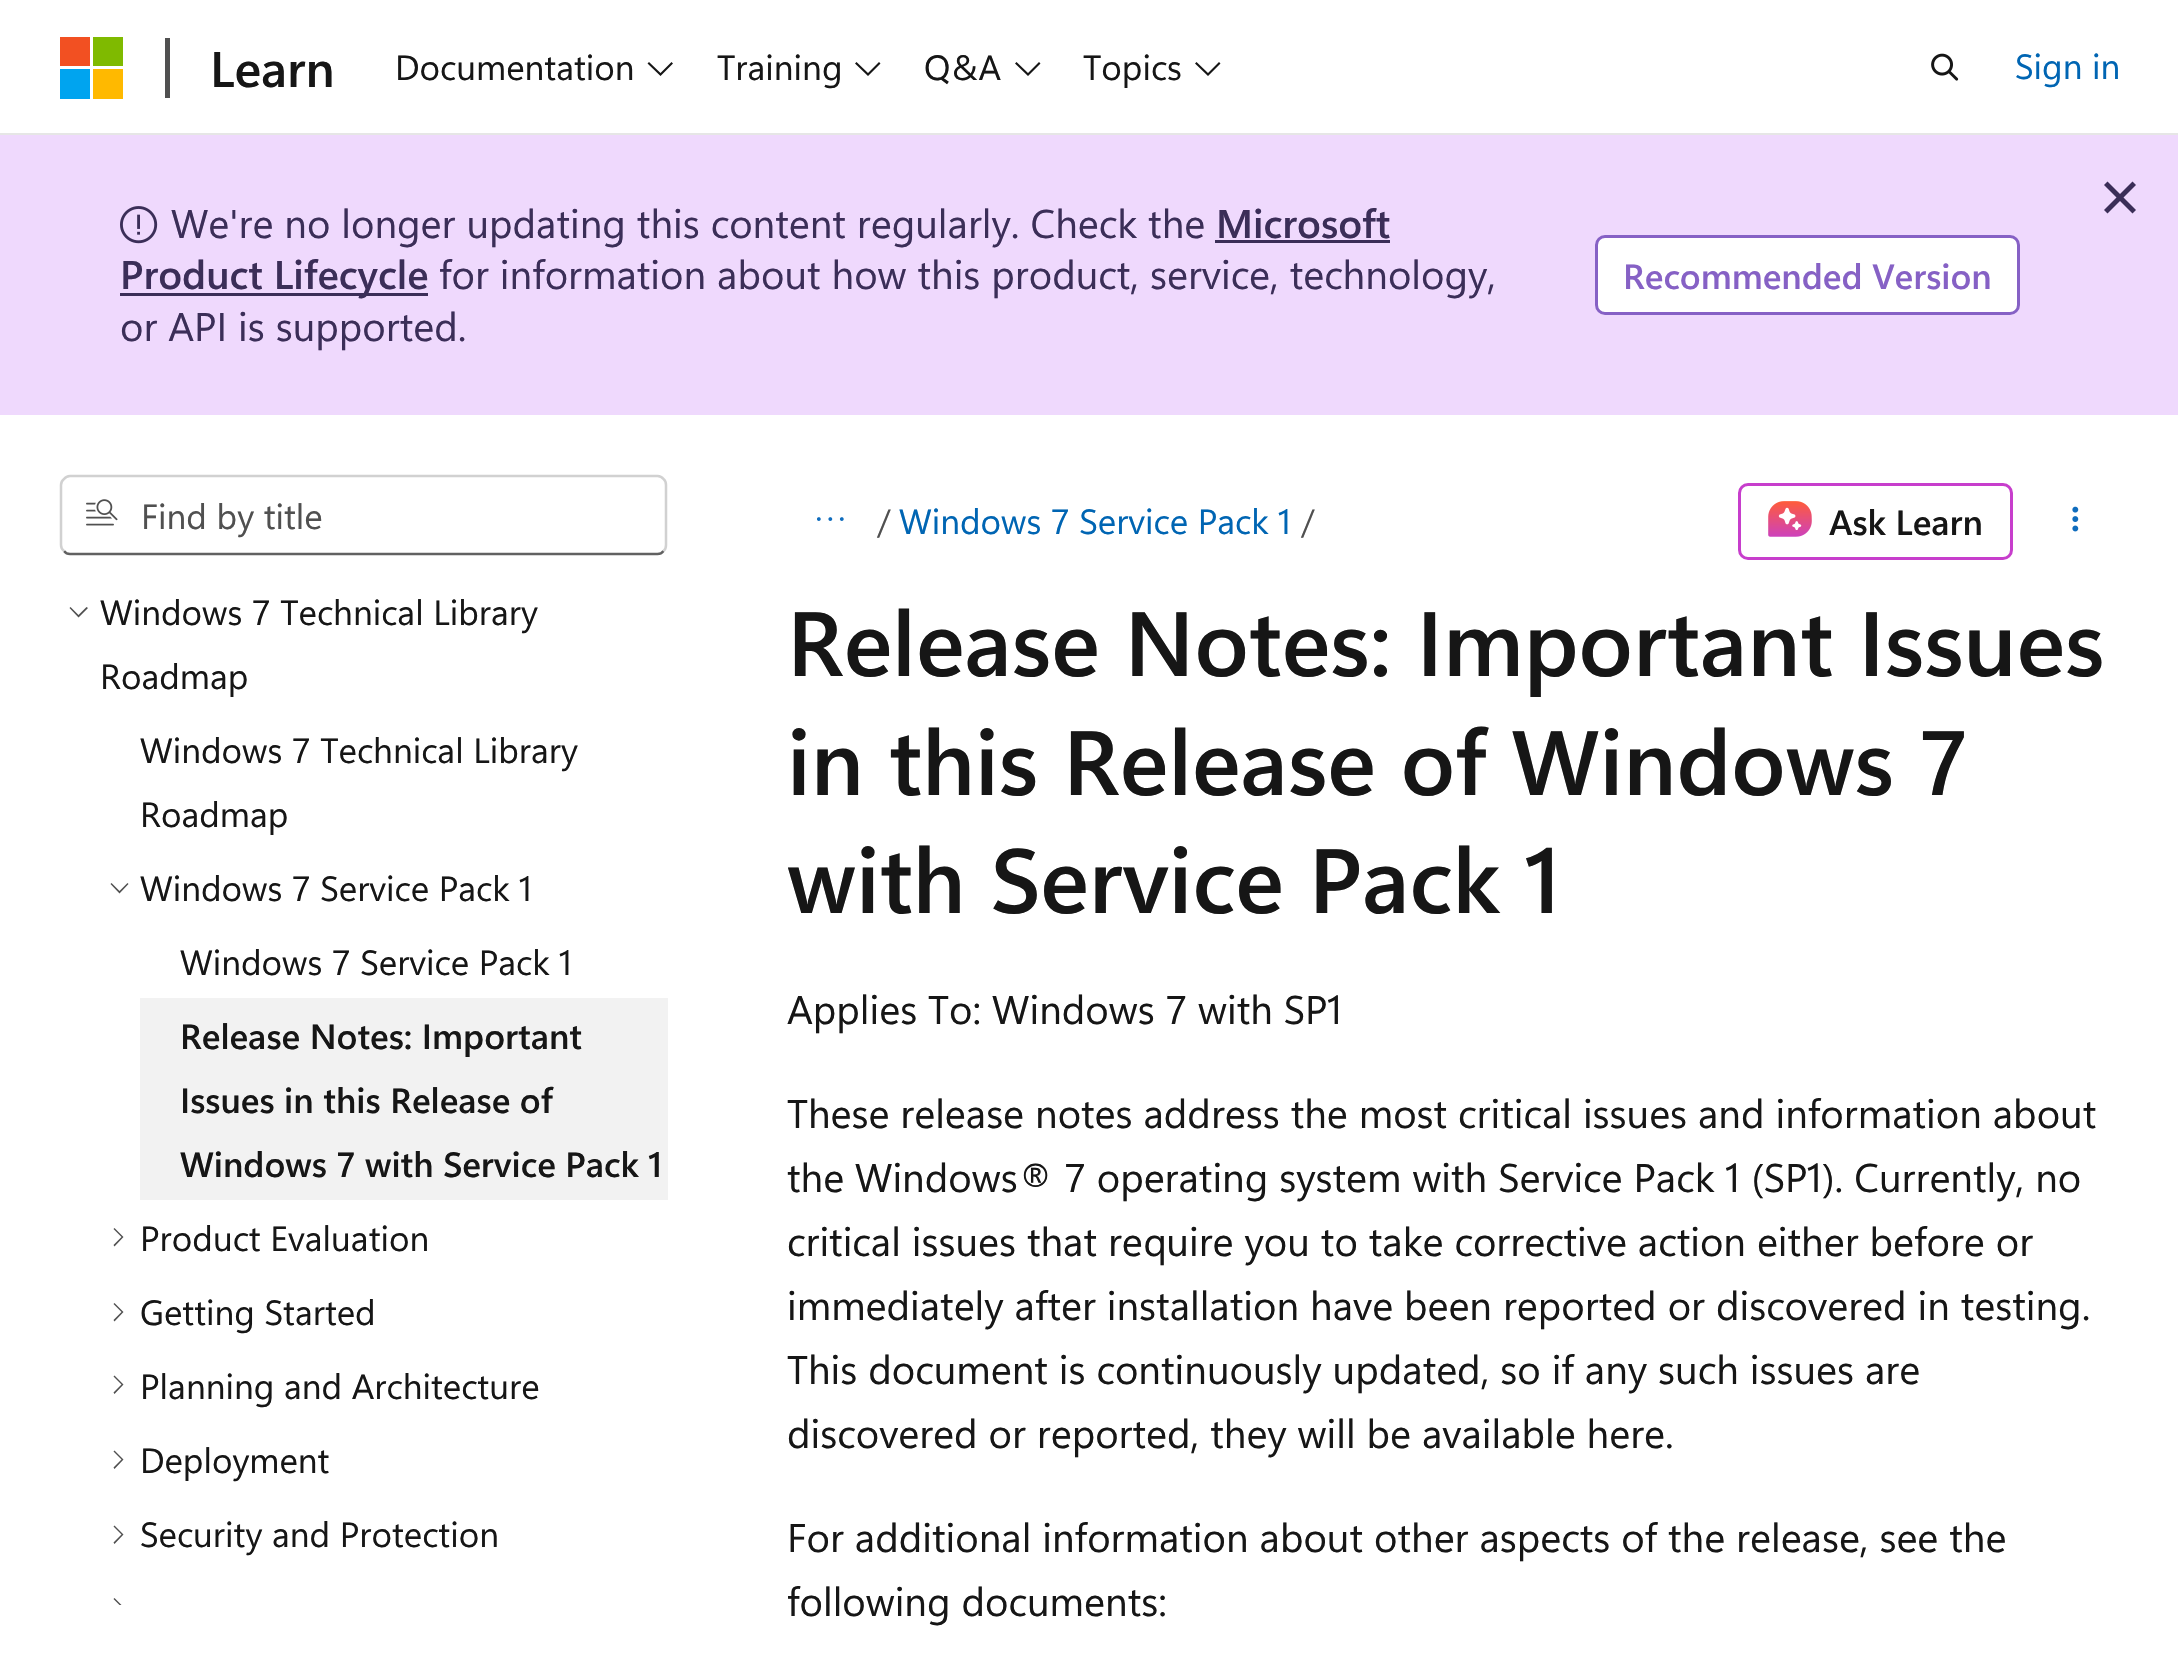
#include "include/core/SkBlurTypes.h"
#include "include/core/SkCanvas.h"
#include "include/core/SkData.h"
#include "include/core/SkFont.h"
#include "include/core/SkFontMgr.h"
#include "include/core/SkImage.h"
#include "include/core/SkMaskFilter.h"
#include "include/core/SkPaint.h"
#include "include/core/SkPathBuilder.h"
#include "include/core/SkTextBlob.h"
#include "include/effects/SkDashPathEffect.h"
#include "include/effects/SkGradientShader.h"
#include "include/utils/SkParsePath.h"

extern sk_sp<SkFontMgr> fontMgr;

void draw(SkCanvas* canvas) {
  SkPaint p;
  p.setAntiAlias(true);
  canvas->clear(SK_ColorWHITE);
  p.setColor(SkColorSetRGB(230, 230, 230));
  canvas->drawRect(SkRect::MakeLTRB(0, 133, 2178, 135), p);
  p.setColor(SkColorSetRGB(242, 80, 34));
  canvas->drawRect(SkRect::MakeLTRB(60, 37, 90, 66), p);
  p.setColor(SkColorSetRGB(127, 186, 0));
  canvas->drawRect(SkRect::MakeLTRB(93, 37, 123, 66), p);
  p.setColor(SkColorSetRGB(0, 164, 239));
  canvas->drawRect(SkRect::MakeLTRB(60, 69, 90, 99), p);
  p.setColor(SkColorSetRGB(255, 185, 0));
  canvas->drawRect(SkRect::MakeLTRB(93, 69, 123, 99), p);
  p.setColor(SkColorSetRGB(80, 80, 80));
  canvas->drawRect(SkRect::MakeLTRB(165, 38, 170, 98), p);
  p.setColor(SkColorSetRGB(22, 22, 22));
  canvas->drawPath(SkPathBuilder().moveTo(660.5f, 76).lineTo(647.5f, 63.5f).lineTo(649, 62).lineTo(660.5f, 73).lineTo(671.5f, 62).lineTo(673, 63.5f).close().detach(), p);
  canvas->drawPath(SkPathBuilder().moveTo(868, 76).lineTo(855, 63.5f).lineTo(856.5f, 62).lineTo(868, 73).lineTo(879, 62).lineTo(880.5f, 63.5f).close().detach(), p);
  canvas->drawPath(SkPathBuilder().moveTo(1028, 76).lineTo(1015, 63.5f).lineTo(1016.5f, 62).lineTo(1028, 73).lineTo(1039, 62).lineTo(1040.5f, 63.5f).close().detach(), p);
  canvas->drawPath(SkPathBuilder().moveTo(1208, 76).lineTo(1195, 63.5f).lineTo(1196.5f, 62).lineTo(1208, 73).lineTo(1219, 62).lineTo(1220.5f, 63.5f).close().detach(), p);
  canvas->drawImageRect(SkImages::DeferredFromEncodedData(SkData::MakeFromFileName("images/1.png")), SkRect::MakeLTRB(1931, 53, 1959, 81), SkSamplingOptions());
  p.setColor(SkColorSetRGB(239, 217, 253));
  canvas->drawRect(SkRect::MakeLTRB(0, 135, 2178, 415), p);
  p.setColor(SkColorSetRGB(59, 46, 88));
  canvas->drawPath(SkPathBuilder().moveTo(2107.5f, 181.5f).lineTo(2136, 210).lineTo(2132.5f, 213.5f).lineTo(2104, 185).close().detach(), p);
  canvas->drawPath(SkPathBuilder().moveTo(2132.5f, 181.5f).lineTo(2136, 185).lineTo(2107.5f, 213.5f).lineTo(2104, 210).close().detach(), p);
  canvas->drawImageRect(SkImages::DeferredFromEncodedData(SkData::MakeFromFileName("images/2.png")), SkRect::MakeLTRB(120, 206, 158, 244), SkSamplingOptions());
  canvas->drawRect(SkRect::MakeLTRB(1215, 240, 1390, 243), p);
  canvas->drawRect(SkRect::MakeLTRB(120, 293, 428, 296), p);
  p.setColor(SK_ColorWHITE);
  canvas->drawRoundRect(SkRect::MakeLTRB(1596.5f, 236.5f, 2018.5f, 313.5f), 8.5f, 8.5f, p);
  p.setStyle(SkPaint::kStroke_Style);
  p.setStrokeWidth(3);
  p.setColor(SkColorSetRGB(134, 97, 197));
  canvas->drawRoundRect(SkRect::MakeLTRB(1596.5f, 236.5f, 2018.5f, 313.5f), 8.5f, 8.5f, p);
  p.setStrokeWidth(2.5f);
  p.setColor(SkColorSetRGB(97, 97, 97));
  canvas->drawPath(SkPathBuilder().moveTo(663.5f, 551).cubicTo(662, 553, 660, 554, 657.5f, 554).lineTo(70, 554).cubicTo(67.5f, 554, 65.5f, 553, 64, 551).detach(), p);
  p.setColor(SkColorSetRGB(209, 209, 209));
  canvas->drawPath(SkPathBuilder().moveTo(64, 551).cubicTo(62, 549.5f, 61, 547.5f, 61, 545).lineTo(61, 485).cubicTo(61, 482.5f, 62, 480.5f, 64, 479).cubicTo(65.5f, 477, 67.5f, 476, 70, 476).lineTo(657.5f, 476).cubicTo(660, 476, 662, 477, 663.5f, 479).cubicTo(665.5f, 480.5f, 666, 482.5f, 666, 485).lineTo(666, 545).cubicTo(666, 547.5f, 665.5f, 549.5f, 663.5f, 551).detach(), p);
  canvas->drawImageRect(SkImages::DeferredFromEncodedData(SkData::MakeFromFileName("images/3.png")), SkRect::MakeLTRB(86, 499, 118, 526), SkSamplingOptions());
  p.setStyle(SkPaint::kFill_Style);
  p.setColor(SkColorSetRGB(80, 80, 80));
  canvas->drawPath(SkPathBuilder().moveTo(78.5f, 617.5f).lineTo(69.5f, 608).lineTo(70.5f, 607).lineTo(78.5f, 615).lineTo(86.5f, 607).lineTo(88, 608).close().detach(), p);
  canvas->drawPath(SkPathBuilder().moveTo(119.5f, 893.5f).lineTo(110.5f, 884).lineTo(111.5f, 883).lineTo(119.5f, 891).lineTo(127.5f, 883).lineTo(128.5f, 884).close().detach(), p);
  p.setColor(SkColorSetRGB(242, 242, 242));
  canvas->drawRect(SkRect::MakeLTRB(140, 998, 668, 1200), p);
  p.setColor(SkColorSetRGB(80, 80, 80));
  canvas->drawPath(SkPathBuilder().moveTo(123.5f, 1237).lineTo(114.5f, 1246.5f).lineTo(113.5f, 1245).lineTo(121.5f, 1237).lineTo(113.5f, 1229).lineTo(114.5f, 1228).close().detach(), p);
  canvas->drawPath(SkPathBuilder().moveTo(123.5f, 1312).lineTo(114.5f, 1321.5f).lineTo(113.5f, 1320).lineTo(121.5f, 1312).lineTo(113.5f, 1304).lineTo(114.5f, 1303).close().detach(), p);
  canvas->drawPath(SkPathBuilder().moveTo(123.5f, 1384.5f).lineTo(114.5f, 1394).lineTo(113.5f, 1392.5f).lineTo(121.5f, 1384.5f).lineTo(113.5f, 1376.5f).lineTo(114.5f, 1375.5f).close().detach(), p);
  canvas->drawPath(SkPathBuilder().moveTo(123.5f, 1459.5f).lineTo(114.5f, 1469).lineTo(113.5f, 1467.5f).lineTo(121.5f, 1459.5f).lineTo(113.5f, 1451.5f).lineTo(114.5f, 1450.5f).close().detach(), p);
  canvas->drawPath(SkPathBuilder().moveTo(123.5f, 1534.5f).lineTo(114.5f, 1544).lineTo(113.5f, 1542.5f).lineTo(121.5f, 1534.5f).lineTo(113.5f, 1526.5f).lineTo(114.5f, 1525.5f).close().detach(), p);
  canvas->save();
  canvas->clipRect(SkRect::MakeLTRB(60, 575, 668, 1605));
  canvas->drawPath(SkPathBuilder().moveTo(123.5f, 1607).lineTo(114.5f, 1616.5f).lineTo(113.5f, 1615).lineTo(121.5f, 1607).lineTo(113.5f, 1599).lineTo(114.5f, 1598).close().detach(), p);
  canvas->restore();
  canvas->drawImageRect(SkImages::DeferredFromEncodedData(SkData::MakeFromFileName("images/4.png")), SkRect::MakeLTRB(817, 517, 844, 521), SkSamplingOptions());
  p.setStyle(SkPaint::kStroke_Style);
  p.setStrokeWidth(3);
  p.setColor(SkColorSetRGB(199, 62, 204));
  canvas->drawRoundRect(SkRect::MakeLTRB(1739.5f, 484.5f, 2011.5f, 558.5f), 8.5f, 8.5f, p);
  canvas->drawImageRect(SkImages::DeferredFromEncodedData(SkData::MakeFromFileName("images/5.png")), SkRect::MakeLTRB(1768, 501, 1812, 537), SkSamplingOptions());
  canvas->drawImageRect(SkImages::DeferredFromEncodedData(SkData::MakeFromFileName("images/6.png")), SkRect::MakeLTRB(2072, 506, 2079, 532), SkSamplingOptions());
  SkFont font1(fontMgr->matchFamilyStyle("Segoe UI", SkFontStyle(600, SkFontStyle::kNormal_Width, SkFontStyle::kUpright_Slant)), 50);
  font1.setSubpixel(true);
  p.setStyle(SkPaint::kFill_Style);
  p.setColor(SkColorSetRGB(22, 22, 22));
  canvas->drawString("Learn", 210, 87, font1, p);
  SkFont font2(fontMgr->matchFamilyStyle("Segoe UI", SkFontStyle::Normal()), 35);
  font2.setSubpixel(true);
  canvas->drawString("Documentation", 395, 80, font2, p);
  canvas->drawString("Training", 717, 80, font2, p);
  canvas->drawString("Q&A", 924, 80, font2, p);
  canvas->drawString("Topics", 1083, 80, font2, p);
  p.setColor(SkColorSetRGB(0, 101, 179));
  canvas->drawString("Sign in", 2015, 79, font2, p);
  SkFont font3(fontMgr->matchFamilyStyle("Segoe UI", SkFontStyle::Normal()), 40);
  font3.setSubpixel(true);
  p.setColor(SkColorSetRGB(59, 46, 88));
  canvas->drawString("We're no longer updating this content regularly. Check the", 171, 238, font3, p);
  SkFont font4(fontMgr->matchFamilyStyle("Segoe UI", SkFontStyle(600, SkFontStyle::kNormal_Width, SkFontStyle::kUpright_Slant)), 40);
  font4.setSubpixel(true);
  canvas->drawString("Microsoft", 1216, 238, font4, p);
  canvas->drawString("Product Lifecycle", 120, 289, font4, p);
  canvas->drawString("for information about how this product, service, technology,", 439, 289, font3, p);
  canvas->drawString("or API is supported.", 120, 341, font3, p);
  SkFont font5(fontMgr->matchFamilyStyle("Segoe UI", SkFontStyle(600, SkFontStyle::kNormal_Width, SkFontStyle::kUpright_Slant)), 35);
  font5.setSubpixel(true);
  p.setColor(SkColorSetRGB(134, 97, 197));
  canvas->drawString("Recommended Version", 1623, 289, font5, p);
  p.setColor(SkColorSetRGB(80, 80, 80));
  canvas->drawString("Find by title", 141, 529, font2, p);
  p.setColor(SkColorSetRGB(22, 22, 22));
  canvas->drawString("Windows 7 Technical Library", 100, 625, font2, p);
  canvas->drawString("Roadmap", 100, 689, font2, p);
  canvas->drawString("Windows 7 Technical Library", 140, 763, font2, p);
  canvas->drawString("Roadmap", 140, 827, font2, p);
  canvas->drawString("Windows 7 Service Pack 1", 140, 901, font2, p);
  canvas->drawString("Windows 7 Service Pack 1", 180, 975, font2, p);
  canvas->drawString("Release Notes: Important", 180, 1049, font5, p);
  canvas->drawString("Issues in this Release of", 180, 1113, font5, p);
  canvas->drawString("Windows 7 with Service Pack 1", 180, 1177, font5, p);
  canvas->drawString("Product Evaluation", 140, 1251, font2, p);
  canvas->drawString("Getting Started", 140, 1325, font2, p);
  canvas->drawString("Planning and Architecture", 140, 1399, font2, p);
  canvas->drawString("Deployment", 140, 1473, font2, p);
  canvas->drawString("Security and Protection", 140, 1547, font2, p);
  p.setColor(SkColorSetRGB(80, 80, 80));
  canvas->drawString("/", 877, 534, font2, p);
  p.setColor(SkColorSetRGB(0, 101, 179));
  canvas->drawString("Windows 7 Service Pack 1", 899, 534, font2, p);
  p.setColor(SkColorSetRGB(80, 80, 80));
  canvas->drawString("/", 1301, 534, font2, p);
  p.setColor(SkColorSetRGB(22, 22, 22));
  canvas->drawString("Ask Learn", 1829, 535, font5, p);
  SkFont font6(fontMgr->matchFamilyStyle("Segoe UI", SkFontStyle(600, SkFontStyle::kNormal_Width, SkFontStyle::kUpright_Slant)), 91.1f);
  font6.setSubpixel(true);
  canvas->drawString("Release Notes: Important Issues", 787, 676, font6, p);
  canvas->drawString("in this Release of Windows 7", 787, 795, font6, p);
  canvas->drawString("with Service Pack 1", 787, 913, font6, p);
  canvas->drawString("Applies To: Windows 7 with SP1", 787, 1024, font3, p);
  canvas->drawString("These release notes address the most critical issues and information about", 787, 1128, font3, p);
  canvas->drawString("the Windows® 7 operating system with Service Pack 1 (SP1). Currently, no", 787, 1192, font3, p);
  canvas->drawString("critical issues that require you to take corrective action either before or", 787, 1256, font3, p);
  canvas->drawString("immediately after installation have been reported or discovered in testing.", 787, 1320, font3, p);
  canvas->drawString("This document is continuously updated, so if any such issues are", 787, 1384, font3, p);
  canvas->drawString("discovered or reported, they will be available here.", 787, 1448, font3, p);
  canvas->drawString("For additional information about other aspects of the release, see the", 787, 1552, font3, p);
  canvas->drawString("following documents:", 787, 1616, font3, p);
}
